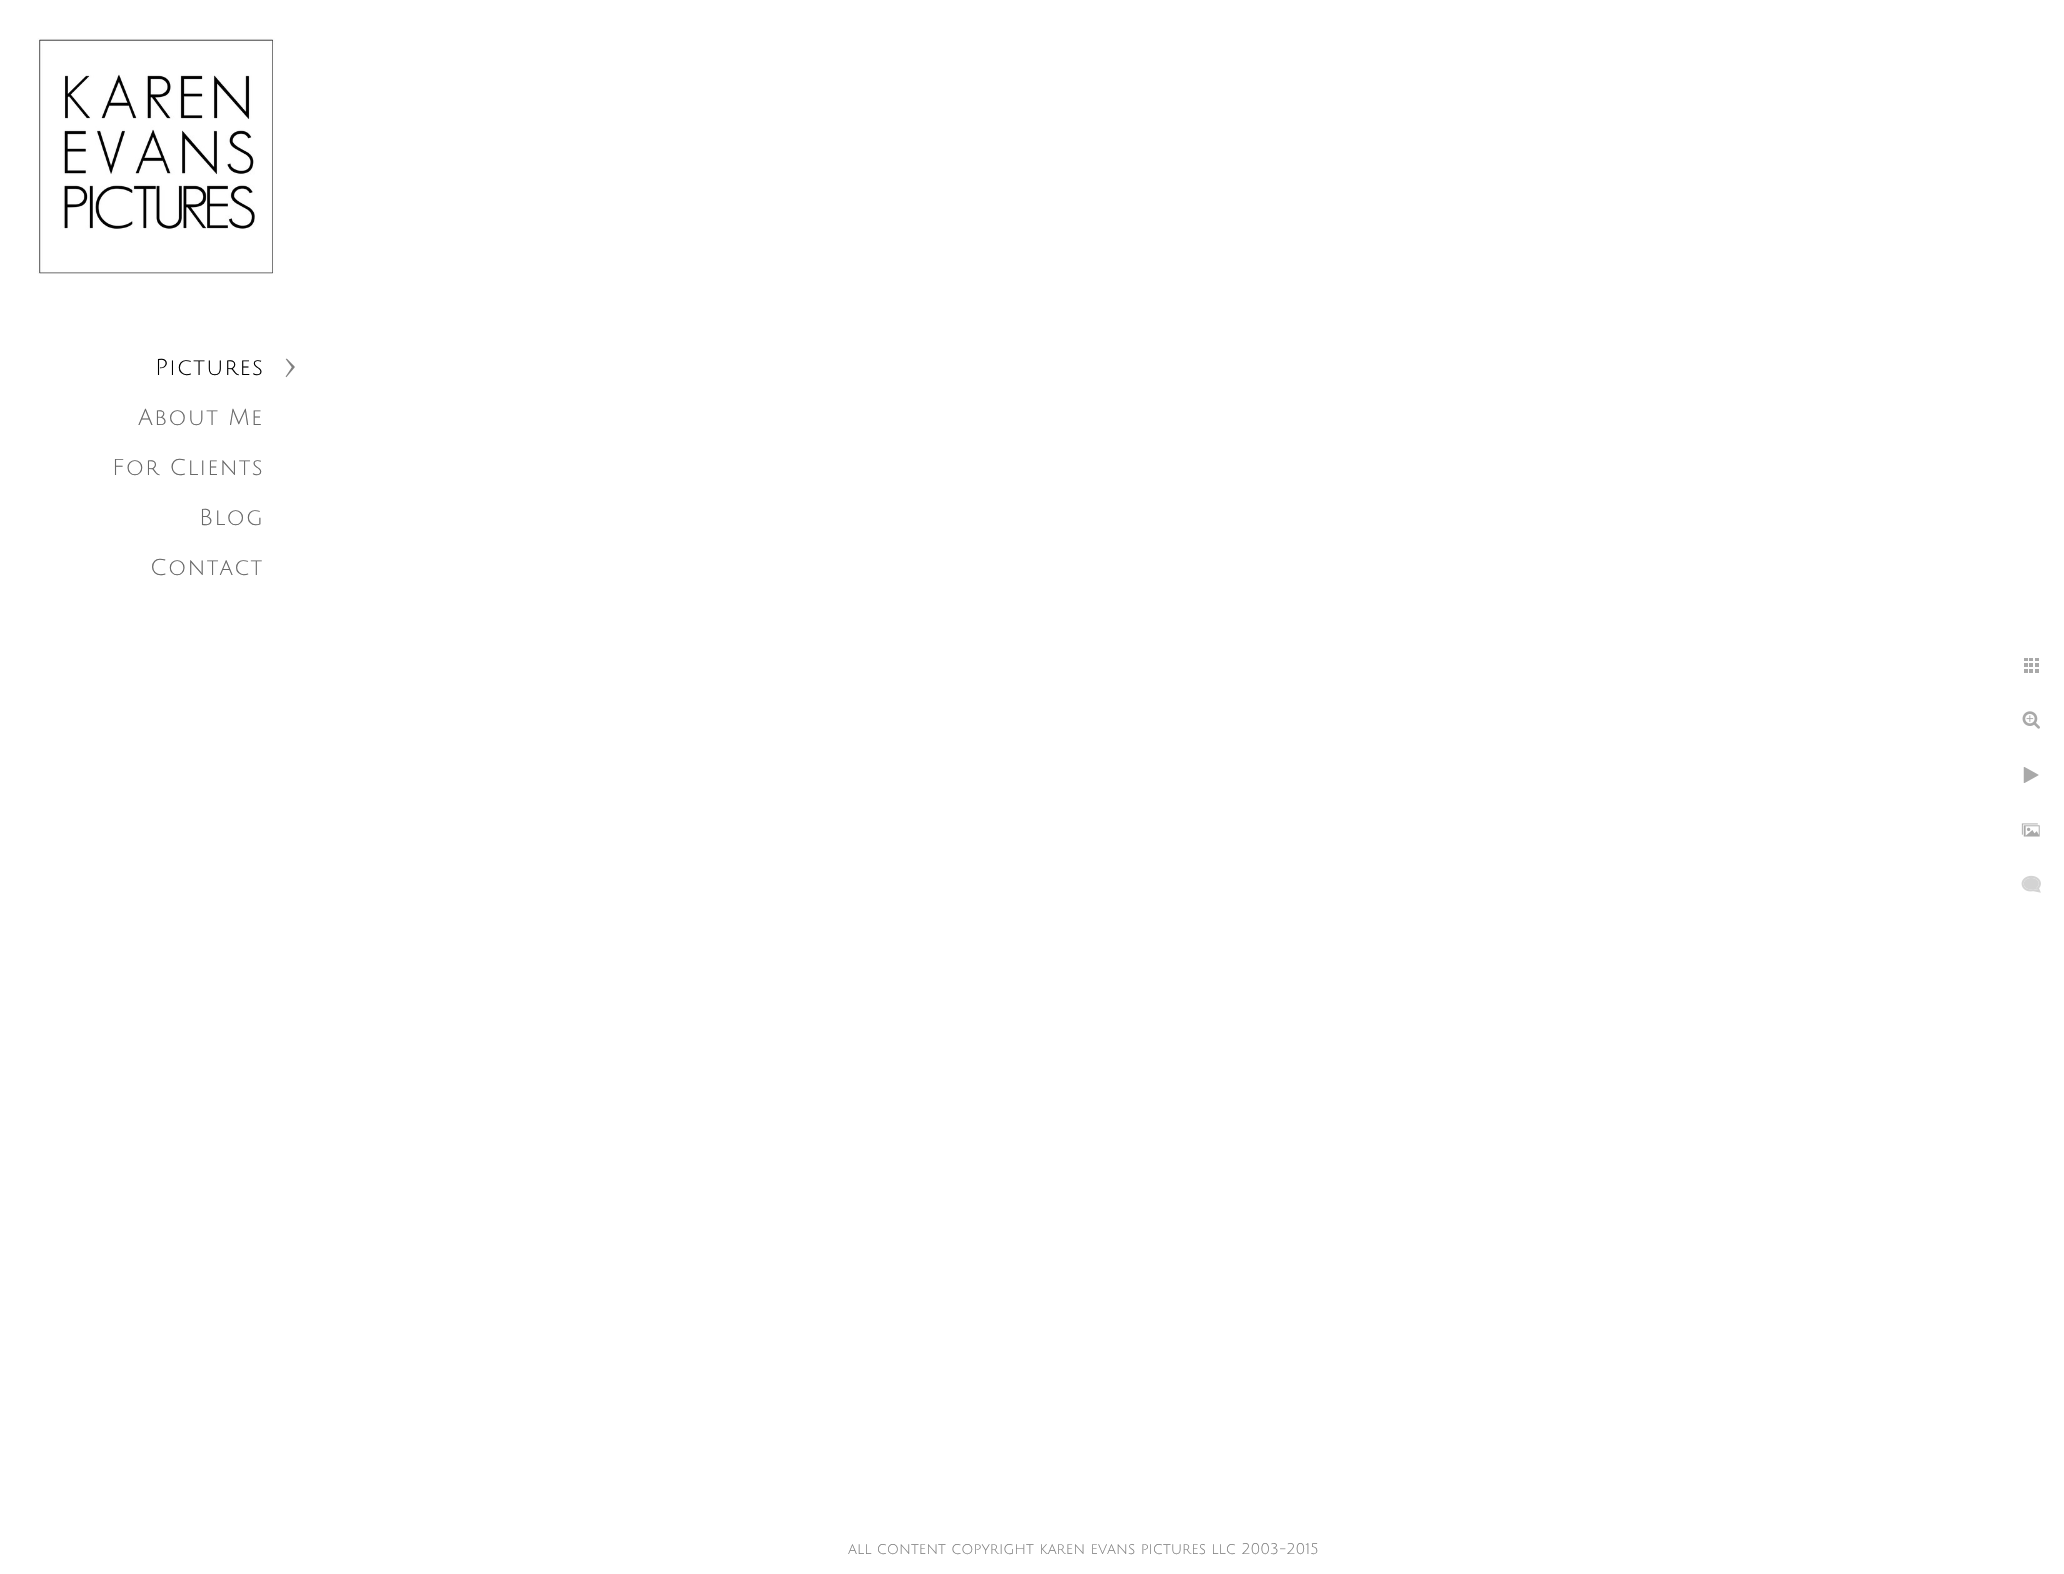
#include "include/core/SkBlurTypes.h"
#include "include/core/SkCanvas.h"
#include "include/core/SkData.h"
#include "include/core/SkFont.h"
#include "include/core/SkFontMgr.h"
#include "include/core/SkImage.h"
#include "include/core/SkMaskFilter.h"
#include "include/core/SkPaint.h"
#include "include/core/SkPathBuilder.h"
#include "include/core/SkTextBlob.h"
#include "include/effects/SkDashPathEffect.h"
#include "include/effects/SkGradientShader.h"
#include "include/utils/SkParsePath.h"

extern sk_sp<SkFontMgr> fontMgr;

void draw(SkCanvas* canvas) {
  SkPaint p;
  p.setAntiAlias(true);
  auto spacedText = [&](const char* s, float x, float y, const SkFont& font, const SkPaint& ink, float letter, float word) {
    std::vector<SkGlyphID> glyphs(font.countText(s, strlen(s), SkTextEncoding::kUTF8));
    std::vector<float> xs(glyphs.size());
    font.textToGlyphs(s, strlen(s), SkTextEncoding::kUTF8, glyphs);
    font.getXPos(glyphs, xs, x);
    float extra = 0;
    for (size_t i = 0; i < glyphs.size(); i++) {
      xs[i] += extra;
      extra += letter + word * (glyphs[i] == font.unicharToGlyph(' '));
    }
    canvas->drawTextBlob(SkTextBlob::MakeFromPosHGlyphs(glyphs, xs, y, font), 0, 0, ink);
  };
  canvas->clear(SK_ColorWHITE);
  canvas->drawImageRect(SkImages::DeferredFromEncodedData(SkData::MakeFromFileName("images/1.png")), SkRect::MakeLTRB(37, 38, 275, 274), SkSamplingOptions());
  canvas->drawImageRect(SkImages::DeferredFromEncodedData(SkData::MakeFromFileName("images/2.png")), SkRect::MakeLTRB(285, 358, 295, 378), SkSamplingOptions());
  canvas->drawImageRect(SkImages::DeferredFromEncodedData(SkData::MakeFromFileName("images/3.png")), SkRect::MakeLTRB(2024, 658, 2039, 673), SkSamplingOptions());
  canvas->drawImageRect(SkImages::DeferredFromEncodedData(SkData::MakeFromFileName("images/4.png")), SkRect::MakeLTRB(2022, 711, 2040, 729), SkSamplingOptions());
  canvas->drawImageRect(SkImages::DeferredFromEncodedData(SkData::MakeFromFileName("images/5.png")), SkRect::MakeLTRB(2023, 767, 2039, 783), SkSamplingOptions());
  canvas->drawImageRect(SkImages::DeferredFromEncodedData(SkData::MakeFromFileName("images/6.png")), SkRect::MakeLTRB(2021, 823, 2040, 837), SkSamplingOptions());
  canvas->drawImageRect(SkImages::DeferredFromEncodedData(SkData::MakeFromFileName("images/7.png")), SkRect::MakeLTRB(2021, 875, 2041, 893), SkSamplingOptions());
  SkFont font1(fontMgr->matchFamilyStyle("Julius Sans One", SkFontStyle::Normal()), 22.5f);
  font1.setSubpixel(true);
  p.setColor(SK_ColorBLACK);
  spacedText("Pictures", 155, 375, font1, p, 1.25f, 0);
  p.setColor(SkColorSetRGB(105, 105, 105));
  spacedText("About Me", 138, 425, font1, p, 1.25f, 0);
  spacedText("For Clients", 112, 475, font1, p, 1.25f, 0);
  spacedText("Blog", 199, 525, font1, p, 1.25f, 0);
  spacedText("Contact", 150, 575, font1, p, 1.25f, 0);
  SkFont font2(fontMgr->matchFamilyStyle("Julius Sans One", SkFontStyle::Normal()), 15);
  font2.setSubpixel(true);
  p.setColor(SkColorSetRGB(128, 128, 128));
  canvas->drawString("all content copyright karen evans pictures llc 2003-2015", 848, 1554, font2, p);
}
